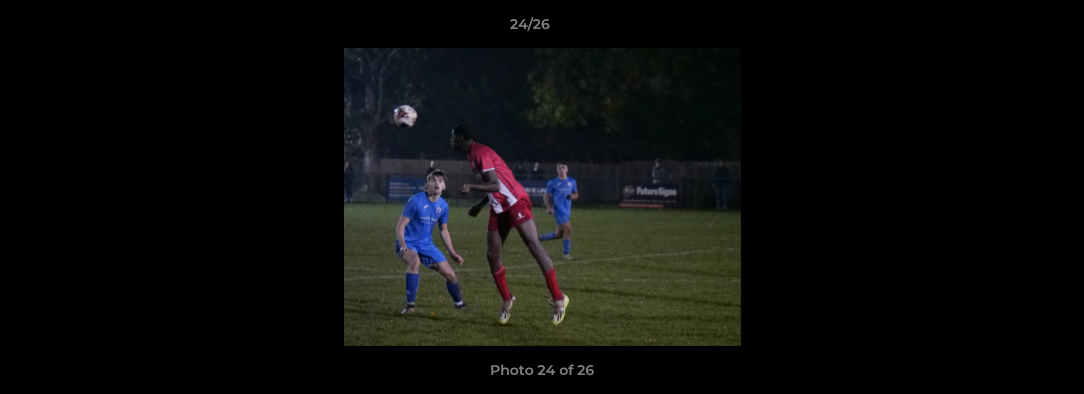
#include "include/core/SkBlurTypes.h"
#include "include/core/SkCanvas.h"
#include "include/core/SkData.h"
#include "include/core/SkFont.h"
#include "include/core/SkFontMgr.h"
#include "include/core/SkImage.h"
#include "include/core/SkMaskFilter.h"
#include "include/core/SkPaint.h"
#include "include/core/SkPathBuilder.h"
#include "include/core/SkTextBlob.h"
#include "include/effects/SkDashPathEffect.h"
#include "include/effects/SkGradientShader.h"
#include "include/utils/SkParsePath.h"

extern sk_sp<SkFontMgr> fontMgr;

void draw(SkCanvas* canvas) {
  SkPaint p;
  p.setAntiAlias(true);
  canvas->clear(SK_ColorBLACK);
  canvas->drawImageRect(SkImages::DeferredFromEncodedData(SkData::MakeFromFileName("images/1.png")), SkRect::MakeLTRB(343, 48, 741, 346), SkSamplingOptions());
  SkFont font1(fontMgr->matchFamilyStyle("Montserrat", SkFontStyle(600, SkFontStyle::kNormal_Width, SkFontStyle::kUpright_Slant)), 14);
  font1.setSubpixel(true);
  p.setColor(SkColorSetRGB(128, 128, 128));
  canvas->drawString("24/26", 510, 29, font1, p);
  canvas->drawString("Photo 24 of 26", 490, 375, font1, p);
}
